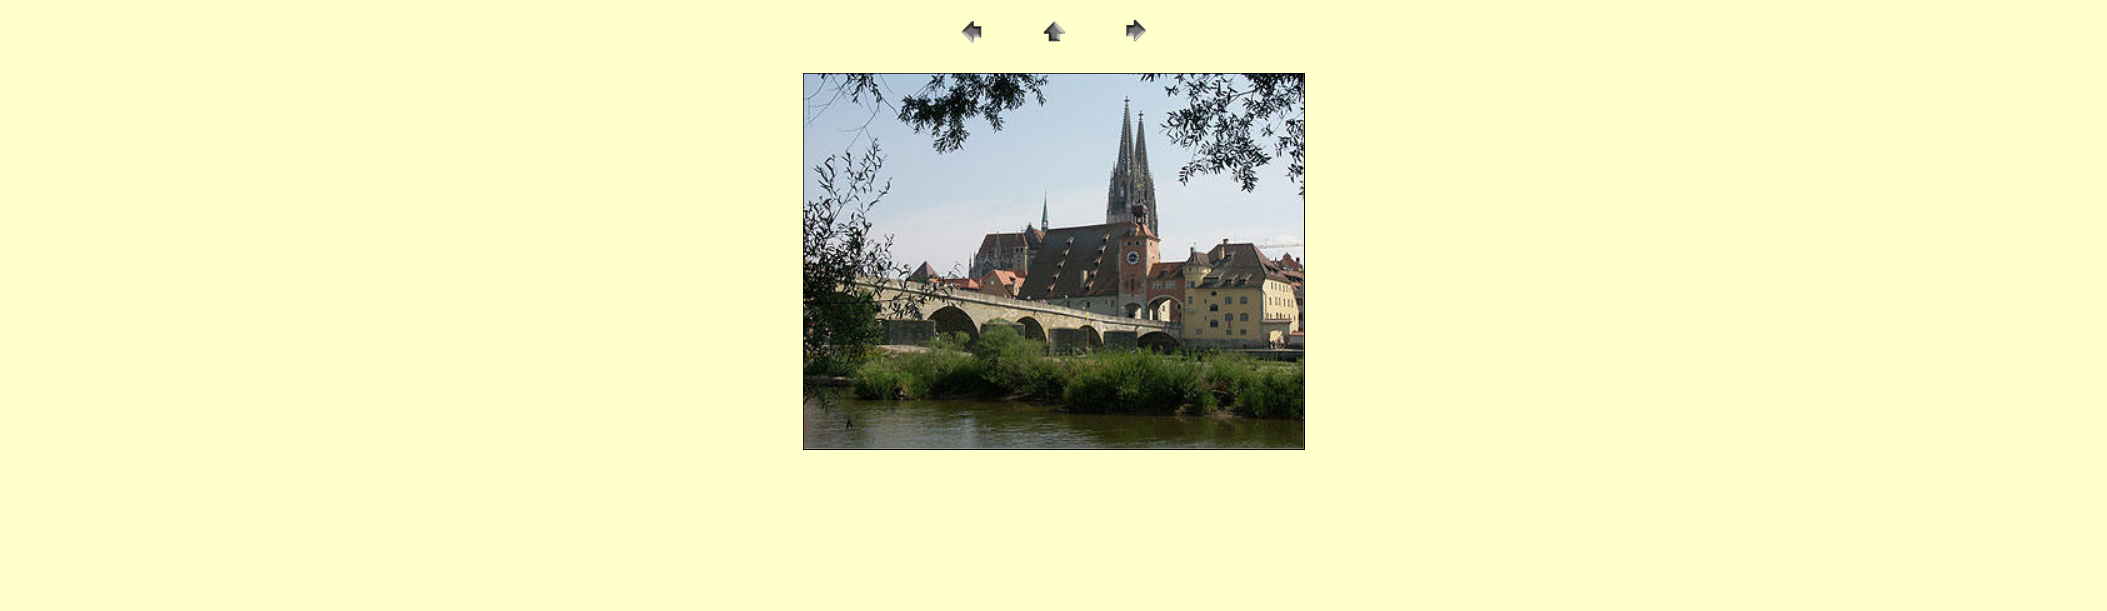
#include "include/core/SkBlurTypes.h"
#include "include/core/SkCanvas.h"
#include "include/core/SkData.h"
#include "include/core/SkFont.h"
#include "include/core/SkFontMgr.h"
#include "include/core/SkImage.h"
#include "include/core/SkMaskFilter.h"
#include "include/core/SkPaint.h"
#include "include/core/SkPathBuilder.h"
#include "include/core/SkTextBlob.h"
#include "include/effects/SkDashPathEffect.h"
#include "include/effects/SkGradientShader.h"
#include "include/utils/SkParsePath.h"

extern sk_sp<SkFontMgr> fontMgr;

void draw(SkCanvas* canvas) {
  SkPaint p;
  p.setAntiAlias(true);
  canvas->clear(SkColorSetRGB(255, 255, 204));
  canvas->drawImageRect(SkImages::DeferredFromEncodedData(SkData::MakeFromFileName("images/1.png")), SkRect::MakeLTRB(961, 21, 982, 43), SkSamplingOptions());
  canvas->drawImageRect(SkImages::DeferredFromEncodedData(SkData::MakeFromFileName("images/2.png")), SkRect::MakeLTRB(1043, 21, 1066, 42), SkSamplingOptions());
  canvas->drawImageRect(SkImages::DeferredFromEncodedData(SkData::MakeFromFileName("images/3.png")), SkRect::MakeLTRB(1126, 19, 1147, 42), SkSamplingOptions());
  p.setStyle(SkPaint::kStroke_Style);
  p.setStrokeWidth(1);
  p.setColor(SK_ColorBLACK);
  canvas->drawRect(SkRect::MakeLTRB(803.5f, 73.5f, 1304.5f, 449.5f), p);
  canvas->drawImageRect(SkImages::DeferredFromEncodedData(SkData::MakeFromFileName("images/4.png")), SkRect::MakeLTRB(803, 73, 1304, 449), SkSamplingOptions());
}
